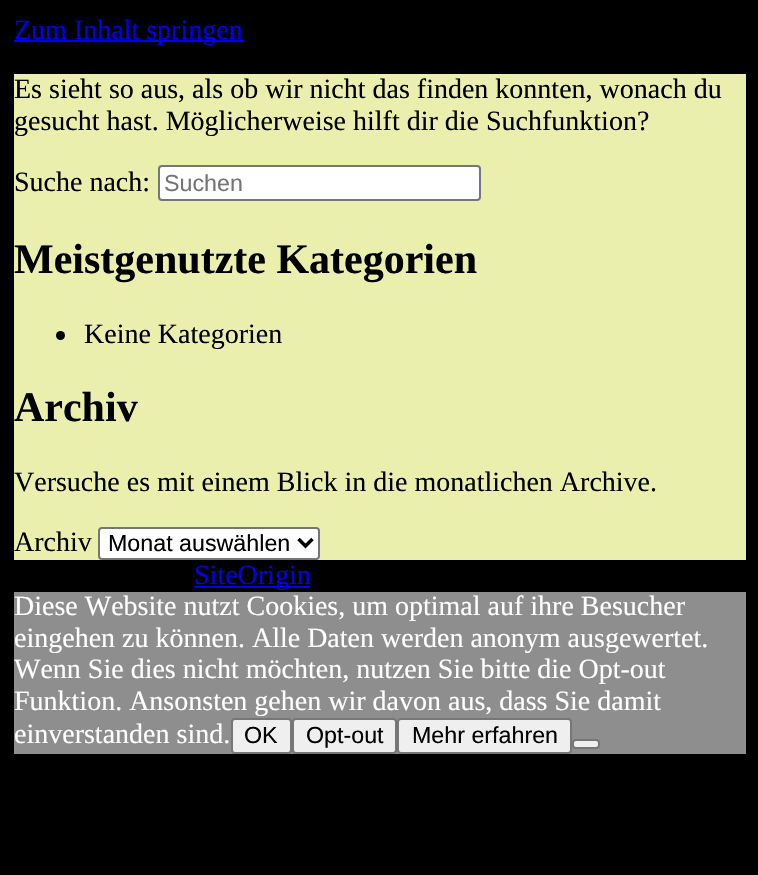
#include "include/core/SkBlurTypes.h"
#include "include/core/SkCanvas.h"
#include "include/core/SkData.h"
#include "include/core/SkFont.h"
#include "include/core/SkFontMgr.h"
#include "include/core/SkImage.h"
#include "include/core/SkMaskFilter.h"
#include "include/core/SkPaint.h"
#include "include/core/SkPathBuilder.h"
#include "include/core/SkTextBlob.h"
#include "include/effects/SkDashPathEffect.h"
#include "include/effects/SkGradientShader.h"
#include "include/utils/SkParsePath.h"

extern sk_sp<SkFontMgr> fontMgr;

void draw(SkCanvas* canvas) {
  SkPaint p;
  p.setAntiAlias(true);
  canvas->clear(SK_ColorBLACK);
  p.setColor(SkColorSetRGB(0, 0, 238));
  canvas->drawRect(SkRect::MakeLTRB(14, 40, 243, 42), p);
  p.setColor(SkColorSetRGB(234, 239, 174));
  canvas->drawRect(SkRect::MakeLTRB(14, 74, 746, 560), p);
  p.setColor(SK_ColorWHITE);
  canvas->drawRoundRect(SkRect::MakeLTRB(159, 166, 480, 200), 3, 3, p);
  p.setStyle(SkPaint::kStroke_Style);
  p.setStrokeWidth(2);
  p.setColor(SkColorSetRGB(118, 118, 118));
  canvas->drawRoundRect(SkRect::MakeLTRB(159, 166, 480, 200), 3, 3, p);
  p.setStyle(SkPaint::kFill_Style);
  p.setColor(SK_ColorBLACK);
  canvas->drawCircle(60.5f, 335.5f, 4.5f, p);
  p.setColor(SK_ColorWHITE);
  canvas->drawRoundRect(SkRect::MakeLTRB(99, 528, 319, 559), 3, 3, p);
  p.setStyle(SkPaint::kStroke_Style);
  p.setColor(SkColorSetRGB(118, 118, 118));
  canvas->drawRoundRect(SkRect::MakeLTRB(99, 528, 319, 559), 3, 3, p);
  p.setStrokeWidth(3.5f);
  p.setColor(SK_ColorBLACK);
  canvas->drawPath(SkPathBuilder().moveTo(298.5f, 539).lineTo(305.5f, 546).lineTo(312.5f, 539).detach(), p);
  p.setStyle(SkPaint::kFill_Style);
  p.setColor(SkColorSetRGB(0, 0, 238));
  canvas->drawRect(SkRect::MakeLTRB(194, 586, 310, 588), p);
  p.setColor(SkColorSetRGB(142, 142, 142));
  canvas->drawRect(SkRect::MakeLTRB(14, 592, 746, 754), p);
  p.setColor(SkColorSetRGB(239, 239, 239));
  canvas->drawRoundRect(SkRect::MakeLTRB(232, 719, 291, 753), 3, 3, p);
  p.setStyle(SkPaint::kStroke_Style);
  p.setStrokeWidth(2);
  p.setColor(SkColorSetRGB(118, 118, 118));
  canvas->drawRoundRect(SkRect::MakeLTRB(232, 719, 291, 753), 3, 3, p);
  p.setStyle(SkPaint::kFill_Style);
  p.setColor(SkColorSetRGB(239, 239, 239));
  canvas->drawRoundRect(SkRect::MakeLTRB(293, 719, 396, 753), 3, 3, p);
  p.setStyle(SkPaint::kStroke_Style);
  p.setColor(SkColorSetRGB(118, 118, 118));
  canvas->drawRoundRect(SkRect::MakeLTRB(293, 719, 396, 753), 3, 3, p);
  p.setStyle(SkPaint::kFill_Style);
  p.setColor(SkColorSetRGB(239, 239, 239));
  canvas->drawRoundRect(SkRect::MakeLTRB(398, 719, 571, 753), 3, 3, p);
  p.setStyle(SkPaint::kStroke_Style);
  p.setColor(SkColorSetRGB(118, 118, 118));
  canvas->drawRoundRect(SkRect::MakeLTRB(398, 719, 571, 753), 3, 3, p);
  p.setStyle(SkPaint::kFill_Style);
  p.setColor(SkColorSetRGB(239, 239, 239));
  canvas->drawRoundRect(SkRect::MakeLTRB(573, 740, 599, 748), 3, 3, p);
  p.setStyle(SkPaint::kStroke_Style);
  p.setColor(SkColorSetRGB(118, 118, 118));
  canvas->drawRoundRect(SkRect::MakeLTRB(573, 740, 599, 748), 3, 3, p);
  SkFont font1(fontMgr->matchFamilyStyle("Liberation Serif", SkFontStyle::Normal()), 28);
  font1.setSubpixel(true);
  p.setStyle(SkPaint::kFill_Style);
  p.setColor(SkColorSetRGB(0, 0, 238));
  canvas->drawString("Zum Inhalt springen", 14, 39, font1, p);
  p.setColor(SK_ColorBLACK);
  canvas->drawString("Es sieht so aus, als ob wir nicht das finden konnten, wonach du", 14, 98, font1, p);
  canvas->drawString("gesucht hast. Möglicherweise hilft dir die Suchfunktion?", 14, 130, font1, p);
  canvas->drawString("Suche nach:", 14, 191, font1, p);
  SkFont font2(fontMgr->matchFamilyStyle("Liberation Sans", SkFontStyle::Normal()), 23.25f);
  font2.setSubpixel(true);
  p.setColor(SkColorSetRGB(117, 117, 117));
  canvas->drawString("Suchen", 164, 191, font2, p);
  SkFont font3(fontMgr->matchFamilyStyle("Liberation Serif", SkFontStyle::Bold()), 42);
  font3.setSubpixel(true);
  p.setColor(SK_ColorBLACK);
  canvas->drawString("Meistgenutzte Kategorien", 14, 273, font3, p);
  canvas->drawString("Keine Kategorien", 84, 343, font1, p);
  canvas->drawString("Archiv", 14, 421, font3, p);
  canvas->drawString("Versuche es mit einem Blick in die monatlichen Archive.", 14, 491, font1, p);
  canvas->drawString("Archiv", 14, 551, font1, p);
  canvas->drawString("Monat auswählen", 108, 551, font2, p);
  p.setColor(SkColorSetRGB(0, 0, 238));
  canvas->drawString("SiteOrigin", 194, 584, font1, p);
  p.setColor(SK_ColorWHITE);
  canvas->drawString("Diese Website nutzt Cookies, um optimal auf ihre Besucher", 14, 615, font1, p);
  canvas->drawString("eingehen zu können. Alle Daten werden anonym ausgewertet.", 14, 647, font1, p);
  canvas->drawString("Wenn Sie dies nicht möchten, nutzen Sie bitte die Opt-out", 14, 678, font1, p);
  canvas->drawString("Funktion. Ansonsten gehen wir davon aus, dass Sie damit", 14, 710, font1, p);
  canvas->drawString("einverstanden sind.", 14, 743, font1, p);
  p.setColor(SK_ColorBLACK);
  canvas->drawString("OK", 244, 743, font2, p);
  canvas->drawString("Opt-out", 306, 743, font2, p);
  canvas->drawString("Mehr erfahren", 412, 743, font2, p);
}
